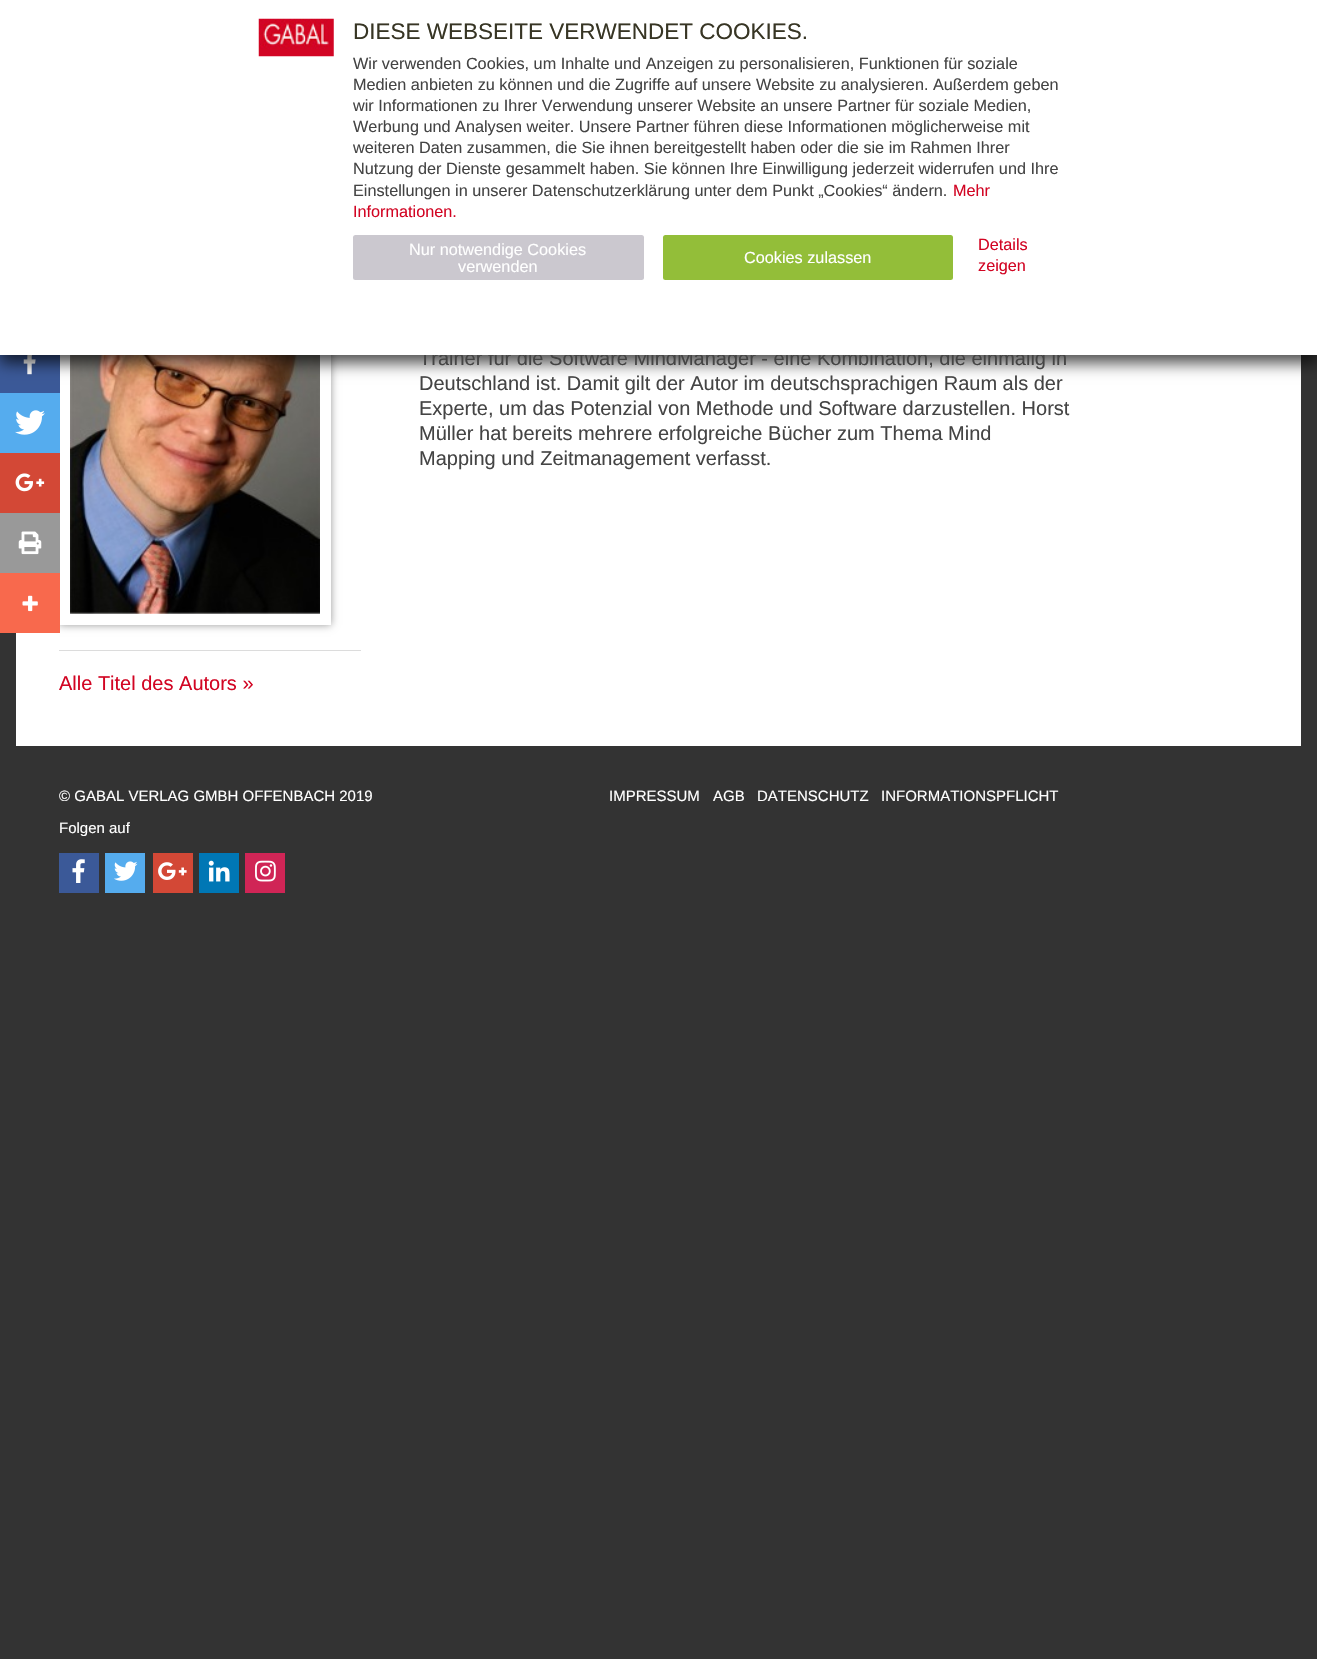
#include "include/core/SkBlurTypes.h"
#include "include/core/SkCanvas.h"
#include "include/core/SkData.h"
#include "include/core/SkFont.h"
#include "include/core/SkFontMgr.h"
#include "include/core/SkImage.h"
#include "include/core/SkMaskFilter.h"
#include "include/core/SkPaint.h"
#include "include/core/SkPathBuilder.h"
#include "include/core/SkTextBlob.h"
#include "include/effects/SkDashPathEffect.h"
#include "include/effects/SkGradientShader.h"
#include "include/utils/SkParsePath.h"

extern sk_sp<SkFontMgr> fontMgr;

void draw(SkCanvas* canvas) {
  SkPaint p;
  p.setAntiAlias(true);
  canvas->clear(SkColorSetRGB(51, 51, 51));
  p.setColor(SK_ColorWHITE);
  canvas->drawRect(SkRect::MakeLTRB(16, 355, 1301, 746), p);
  p.setColor(SkColorSetRGB(153, 153, 153));
  p.setMaskFilter(SkMaskFilter::MakeBlur(kNormal_SkBlurStyle, 4));
  canvas->drawRect(SkRect::MakeLTRB(59, 226, 331, 625), p);
  p.setMaskFilter(nullptr);
  p.setColor(SkColorSetRGB(59, 89, 152));
  canvas->drawRect(SkRect::MakeLTRB(0, 355, 60, 393), p);
  canvas->drawImageRect(SkImages::DeferredFromEncodedData(SkData::MakeFromFileName("images/2.png")), SkRect::MakeLTRB(23, 355, 36, 375), SkSamplingOptions());
  p.setColor(SK_ColorWHITE);
  canvas->drawRect(SkRect::MakeLTRB(60, 355, 331, 625), p);
  canvas->drawImageRect(SkImages::DeferredFromEncodedData(SkData::MakeFromFileName("images/7.png")), SkRect::MakeLTRB(70, 355, 320, 614), SkSamplingOptions());
  p.setColor(SkColorSetARGB(179, 0, 0, 0));
  p.setMaskFilter(SkMaskFilter::MakeBlur(kNormal_SkBlurStyle, 7.5f));
  canvas->drawRect(SkRect::MakeLTRB(0, 8, 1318, 363), p);
  p.setMaskFilter(nullptr);
  p.setColor(SkColorSetRGB(85, 172, 238));
  canvas->drawRect(SkRect::MakeLTRB(0, 393, 60, 453), p);
  canvas->drawImageRect(SkImages::DeferredFromEncodedData(SkData::MakeFromFileName("images/3.png")), SkRect::MakeLTRB(15, 410, 45, 435), SkSamplingOptions());
  p.setColor(SkColorSetRGB(211, 72, 54));
  canvas->drawRect(SkRect::MakeLTRB(0, 453, 60, 513), p);
  canvas->drawImageRect(SkImages::DeferredFromEncodedData(SkData::MakeFromFileName("images/4.png")), SkRect::MakeLTRB(15, 473, 45, 492), SkSamplingOptions());
  p.setColor(SkColorSetRGB(153, 153, 153));
  canvas->drawRect(SkRect::MakeLTRB(0, 513, 60, 573), p);
  canvas->drawImageRect(SkImages::DeferredFromEncodedData(SkData::MakeFromFileName("images/5.png")), SkRect::MakeLTRB(18, 531, 42, 555), SkSamplingOptions());
  p.setColor(SkColorSetRGB(248, 105, 77));
  canvas->drawRect(SkRect::MakeLTRB(0, 573, 60, 633), p);
  canvas->drawImageRect(SkImages::DeferredFromEncodedData(SkData::MakeFromFileName("images/6.png")), SkRect::MakeLTRB(22, 595, 38, 612), SkSamplingOptions());
  p.setColor(SkColorSetRGB(220, 220, 220));
  canvas->drawRect(SkRect::MakeLTRB(59, 650, 361, 651), p);
  p.setColor(SkColorSetRGB(59, 89, 152));
  canvas->drawRect(SkRect::MakeLTRB(59, 853, 99, 893), p);
  canvas->drawImageRect(SkImages::DeferredFromEncodedData(SkData::MakeFromFileName("images/8.png")), SkRect::MakeLTRB(72, 859, 85, 883), SkSamplingOptions());
  p.setColor(SkColorSetRGB(85, 172, 238));
  canvas->drawRect(SkRect::MakeLTRB(105, 853, 145, 893), p);
  canvas->drawImageRect(SkImages::DeferredFromEncodedData(SkData::MakeFromFileName("images/9.png")), SkRect::MakeLTRB(114, 861, 138, 881), SkSamplingOptions());
  p.setColor(SkColorSetRGB(211, 72, 54));
  canvas->drawRect(SkRect::MakeLTRB(153, 853, 193, 893), p);
  canvas->drawImageRect(SkImages::DeferredFromEncodedData(SkData::MakeFromFileName("images/10.png")), SkRect::MakeLTRB(158, 862, 187, 880), SkSamplingOptions());
  p.setColor(SkColorSetRGB(0, 119, 181));
  canvas->drawRect(SkRect::MakeLTRB(199, 853, 239, 893), p);
  canvas->drawImageRect(SkImages::DeferredFromEncodedData(SkData::MakeFromFileName("images/11.png")), SkRect::MakeLTRB(208, 860, 230, 882), SkSamplingOptions());
  p.setColor(SkColorSetRGB(208, 37, 86));
  canvas->drawRect(SkRect::MakeLTRB(245, 853, 285, 893), p);
  canvas->drawImageRect(SkImages::DeferredFromEncodedData(SkData::MakeFromFileName("images/12.png")), SkRect::MakeLTRB(255, 860, 276, 882), SkSamplingOptions());
  SkFont font1(fontMgr->matchFamilyStyle("Liberation Sans", SkFontStyle::Normal()), 20);
  font1.setSubpixel(true);
  p.setColor(SkColorSetRGB(68, 68, 68));
  canvas->drawString("Trainer für die Software MindManager - eine Kombination, die einmalig in", 419, 365, font1, p);
  p.setColor(SK_ColorWHITE);
  canvas->drawRect(SkRect::MakeLTRB(0, 0, 1317, 355), p);
  SkFont font2(fontMgr->matchFamilyStyle("Liberation Sans", SkFontStyle::Normal()), 16.25f);
  font2.setSubpixel(true);
  p.setColor(SkColorSetRGB(210, 5, 35));
  canvas->drawString("zeigen", 978, 271, font2, p);
  canvas->drawString("Details", 978, 250, font2, p);
  p.setColor(SkColorSetRGB(147, 190, 57));
  canvas->drawRoundRect(SkRect::MakeLTRB(663, 235, 953, 280), 2.5f, 2.5f, p);
  p.setColor(SK_ColorWHITE);
  canvas->drawString("Cookies zulassen", 744, 263, font2, p);
  p.setColor(SkColorSetRGB(203, 200, 207));
  canvas->drawRoundRect(SkRect::MakeLTRB(353, 235, 644, 280), 2.5f, 2.5f, p);
  p.setColor(SK_ColorWHITE);
  canvas->drawString("verwenden", 458, 272, font2, p);
  canvas->drawString("Nur notwendige Cookies", 409, 255, font2, p);
  p.setColor(SkColorSetRGB(210, 5, 35));
  canvas->drawString("Informationen.", 353, 217, font2, p);
  canvas->drawString("Mehr", 953, 196, font2, p);
  p.setColor(SkColorSetRGB(68, 68, 68));
  canvas->drawString("Einstellungen in unserer Datenschutzerklärung unter dem Punkt „Cookies“ ändern.", 353, 196, font2, p);
  canvas->drawString("Nutzung der Dienste gesammelt haben. Sie können Ihre Einwilligung jederzeit widerrufen und Ihre", 353, 174, font2, p);
  canvas->drawString("weiteren Daten zusammen, die Sie ihnen bereitgestellt haben oder die sie im Rahmen Ihrer", 353, 153, font2, p);
  canvas->drawString("Werbung und Analysen weiter. Unsere Partner führen diese Informationen möglicherweise mit", 353, 132, font2, p);
  canvas->drawString("wir Informationen zu Ihrer Verwendung unserer Website an unsere Partner für soziale Medien,", 353, 111, font2, p);
  canvas->drawString("Medien anbieten zu können und die Zugriffe auf unsere Website zu analysieren. Außerdem geben", 353, 90, font2, p);
  canvas->drawString("Wir verwenden Cookies, um Inhalte und Anzeigen zu personalisieren, Funktionen für soziale", 353, 69, font2, p);
  SkFont font3(fontMgr->matchFamilyStyle("Liberation Sans", SkFontStyle::Normal()), 22.5f);
  font3.setSubpixel(true);
  p.setColor(SkColorSetRGB(55, 53, 36));
  canvas->drawString("DIESE WEBSEITE VERWENDET COOKIES.", 353, 39, font3, p);
  canvas->drawImageRect(SkImages::DeferredFromEncodedData(SkData::MakeFromFileName("images/1.png")), SkRect::MakeLTRB(258, 18, 334, 57), SkSamplingOptions());
  p.setColor(SkColorSetRGB(68, 68, 68));
  canvas->drawString("Deutschland ist. Damit gilt der Autor im deutschsprachigen Raum als der", 419, 390, font1, p);
  canvas->drawString("Experte, um das Potenzial von Methode und Software darzustellen. Horst", 419, 415, font1, p);
  canvas->drawString("Müller hat bereits mehrere erfolgreiche Bücher zum Thema Mind", 419, 440, font1, p);
  canvas->drawString("Mapping und Zeitmanagement verfasst.", 419, 465, font1, p);
  p.setColor(SkColorSetRGB(210, 5, 35));
  canvas->drawString("Alle Titel des Autors »", 59, 690, font1, p);
  SkFont font4(fontMgr->matchFamilyStyle("Liberation Sans", SkFontStyle::Normal()), 15);
  font4.setSubpixel(true);
  p.setColor(SK_ColorWHITE);
  canvas->drawString("© GABAL VERLAG GMBH OFFENBACH 2019", 59, 801, font4, p);
  canvas->drawString("IMPRESSUM", 609, 801, font4, p);
  canvas->drawString("AGB", 713, 801, font4, p);
  canvas->drawString("DATENSCHUTZ", 757, 801, font4, p);
  canvas->drawString("INFORMATIONSPFLICHT", 881, 801, font4, p);
  canvas->drawString("Folgen auf", 59, 833, font4, p);
}
